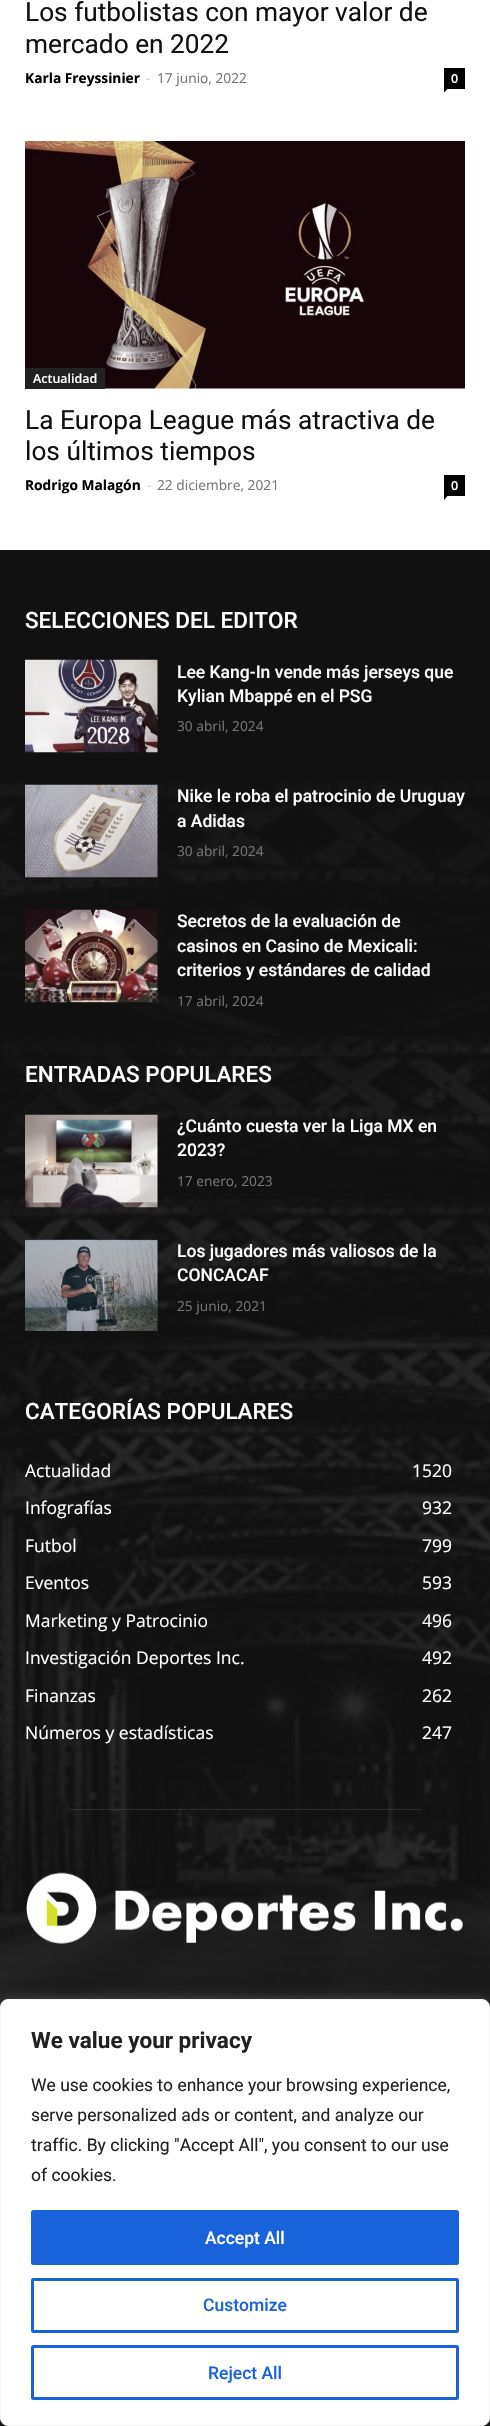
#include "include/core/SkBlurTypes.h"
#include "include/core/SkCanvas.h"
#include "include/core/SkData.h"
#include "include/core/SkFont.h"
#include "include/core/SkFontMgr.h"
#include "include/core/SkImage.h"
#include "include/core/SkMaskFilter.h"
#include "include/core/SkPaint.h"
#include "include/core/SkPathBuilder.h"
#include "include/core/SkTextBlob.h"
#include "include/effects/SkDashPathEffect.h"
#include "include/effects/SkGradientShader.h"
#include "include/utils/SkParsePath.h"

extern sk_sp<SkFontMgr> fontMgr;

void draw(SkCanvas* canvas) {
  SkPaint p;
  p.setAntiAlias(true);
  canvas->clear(SK_ColorWHITE);
  p.setColor(SK_ColorBLACK);
  canvas->drawRect(SkRect::MakeLTRB(444, 68, 465, 89), p);
  canvas->drawPath(SkPathBuilder().moveTo(444, 89).lineTo(447.5f, 89).lineTo(444, 92.5f).close().detach(), p);
  canvas->drawImageRect(SkImages::DeferredFromEncodedData(SkData::MakeFromFileName("images/1.png")), SkRect::MakeLTRB(25, 141, 465, 389), SkSamplingOptions());
  p.setColor(SkColorSetRGB(34, 34, 34));
  canvas->drawRect(SkRect::MakeLTRB(25, 368, 105, 389), p);
  p.setColor(SK_ColorBLACK);
  canvas->drawRect(SkRect::MakeLTRB(444, 475, 465, 496), p);
  canvas->drawPath(SkPathBuilder().moveTo(444, 496).lineTo(447.5f, 496).lineTo(444, 500).close().detach(), p);
  p.setColor(SkColorSetRGB(17, 17, 17));
  canvas->drawRect(SkRect::MakeLTRB(0, 550, 490, 2007), p);
  canvas->drawImageRect(SkImages::DeferredFromEncodedData(SkData::MakeFromFileName("images/2.png")), SkRect::MakeLTRB(0, 783, 490, 2007), SkSamplingOptions());
  canvas->drawImageRect(SkImages::DeferredFromEncodedData(SkData::MakeFromFileName("images/3.png")), SkRect::MakeLTRB(25, 659, 158, 753), SkSamplingOptions());
  canvas->drawImageRect(SkImages::DeferredFromEncodedData(SkData::MakeFromFileName("images/4.png")), SkRect::MakeLTRB(25, 784, 158, 878), SkSamplingOptions());
  canvas->drawImageRect(SkImages::DeferredFromEncodedData(SkData::MakeFromFileName("images/5.png")), SkRect::MakeLTRB(25, 909, 158, 1003), SkSamplingOptions());
  canvas->drawImageRect(SkImages::DeferredFromEncodedData(SkData::MakeFromFileName("images/6.png")), SkRect::MakeLTRB(25, 1114, 158, 1208), SkSamplingOptions());
  canvas->drawImageRect(SkImages::DeferredFromEncodedData(SkData::MakeFromFileName("images/7.png")), SkRect::MakeLTRB(25, 1239, 158, 1331), SkSamplingOptions());
  p.setColor(SkColorSetARGB(26, 255, 255, 255));
  canvas->drawRect(SkRect::MakeLTRB(69, 1809, 421, 1810), p);
  canvas->drawImageRect(SkImages::DeferredFromEncodedData(SkData::MakeFromFileName("images/8.png")), SkRect::MakeLTRB(26, 1872, 463, 1944), SkSamplingOptions());
  p.setColor(SkColorSetRGB(13, 13, 13));
  canvas->drawRect(SkRect::MakeLTRB(0, 2418, 490, 2426), p);
  p.setColor(SkColorSetARGB(77, 172, 171, 171));
  p.setMaskFilter(SkMaskFilter::MakeBlur(kNormal_SkBlurStyle, 6));
  canvas->drawRoundRect(SkRect::MakeLTRB(0, 1998, 490, 2425), 8, 8, p);
  p.setMaskFilter(nullptr);
  p.setColor(SK_ColorWHITE);
  canvas->drawRoundRect(SkRect::MakeLTRB(0.5f, 1999.5f, 489.5f, 2425.5f), 7.5f, 7.5f, p);
  p.setStyle(SkPaint::kStroke_Style);
  p.setStrokeWidth(1);
  p.setColor(SkColorSetRGB(244, 244, 244));
  canvas->drawRoundRect(SkRect::MakeLTRB(0.5f, 1999.5f, 489.5f, 2425.5f), 7.5f, 7.5f, p);
  p.setStyle(SkPaint::kFill_Style);
  p.setColor(SkColorSetRGB(24, 99, 220));
  canvas->drawRoundRect(SkRect::MakeLTRB(32.5f, 2211.5f, 457.5f, 2263.5f), 1, 1, p);
  p.setStyle(SkPaint::kStroke_Style);
  p.setStrokeWidth(3);
  canvas->drawRoundRect(SkRect::MakeLTRB(32.5f, 2211.5f, 457.5f, 2263.5f), 1, 1, p);
  canvas->drawRoundRect(SkRect::MakeLTRB(32.5f, 2279.5f, 457.5f, 2331.5f), 1, 1, p);
  canvas->drawRoundRect(SkRect::MakeLTRB(32.5f, 2346.5f, 457.5f, 2398.5f), 1, 1, p);
  SkFont font1(fontMgr->matchFamilyStyle("Roboto", SkFontStyle::Normal()), 26.25f);
  font1.setSubpixel(true);
  p.setStyle(SkPaint::kFill_Style);
  p.setColor(SkColorSetRGB(17, 17, 17));
  canvas->drawString("Los futbolistas con mayor valor de", 25, 21, font1, p);
  canvas->drawString("mercado en 2022", 25, 53, font1, p);
  SkFont font2(fontMgr->matchFamilyStyle("Open Sans", SkFontStyle::Bold()), 13.75f);
  font2.setSubpixel(true);
  p.setColor(SK_ColorBLACK);
  canvas->drawString("Karla Freyssinier", 25, 83, font2, p);
  SkFont font3(fontMgr->matchFamilyStyle("Open Sans", SkFontStyle::Normal()), 13.75f);
  font3.setSubpixel(true);
  p.setColor(SkColorSetRGB(204, 204, 204));
  canvas->drawString("-", 146, 83, font3, p);
  p.setColor(SkColorSetRGB(118, 118, 118));
  canvas->drawString("17 junio, 2022", 157, 83, font3, p);
  SkFont font4(fontMgr->matchFamilyStyle("Open Sans", SkFontStyle(600, SkFontStyle::kNormal_Width, SkFontStyle::kUpright_Slant)), 12.5f);
  font4.setSubpixel(true);
  p.setColor(SK_ColorWHITE);
  canvas->drawString("0", 451, 83, font4, p);
  canvas->drawString("Actualidad", 33, 383, font4, p);
  p.setColor(SkColorSetRGB(17, 17, 17));
  canvas->drawString("La Europa League más atractiva de", 25, 429, font1, p);
  canvas->drawString("los últimos tiempos", 25, 460, font1, p);
  p.setColor(SK_ColorBLACK);
  canvas->drawString("Rodrigo Malagón", 25, 490, font2, p);
  p.setColor(SkColorSetRGB(204, 204, 204));
  canvas->drawString("-", 147, 490, font3, p);
  p.setColor(SkColorSetRGB(118, 118, 118));
  canvas->drawString("22 diciembre, 2021", 157, 490, font3, p);
  p.setColor(SK_ColorWHITE);
  canvas->drawString("0", 451, 490, font4, p);
  SkFont font5(fontMgr->matchFamilyStyle("Roboto", SkFontStyle(500, SkFontStyle::kNormal_Width, SkFontStyle::kUpright_Slant)), 22.5f);
  font5.setSubpixel(true);
  canvas->drawString("SELECCIONES DEL EDITOR", 25, 628, font5, p);
  SkFont font6(fontMgr->matchFamilyStyle("Roboto", SkFontStyle(500, SkFontStyle::kNormal_Width, SkFontStyle::kUpright_Slant)), 17.5f);
  font6.setSubpixel(true);
  canvas->drawString("Lee Kang-In vende más jerseys que", 177, 678, font6, p);
  canvas->drawString("Kylian Mbappé en el PSG", 177, 702, font6, p);
  p.setColor(SkColorSetRGB(118, 118, 118));
  canvas->drawString("30 abril, 2024", 177, 731, font3, p);
  p.setColor(SK_ColorWHITE);
  canvas->drawString("Nike le roba el patrocinio de Uruguay", 177, 802, font6, p);
  canvas->drawString("a Adidas", 177, 827, font6, p);
  p.setColor(SkColorSetRGB(118, 118, 118));
  canvas->drawString("30 abril, 2024", 177, 856, font3, p);
  p.setColor(SK_ColorWHITE);
  canvas->drawString("Secretos de la evaluación de", 177, 927, font6, p);
  canvas->drawString("casinos en Casino de Mexicali:", 177, 952, font6, p);
  canvas->drawString("сriterios y estándares de calidad", 177, 976, font6, p);
  p.setColor(SkColorSetRGB(118, 118, 118));
  canvas->drawString("17 abril, 2024", 177, 1006, font3, p);
  p.setColor(SK_ColorWHITE);
  canvas->drawString("ENTRADAS POPULARES", 25, 1082, font5, p);
  canvas->drawString("¿Cuánto cuesta ver la Liga MX en", 177, 1132, font6, p);
  canvas->drawString("2023?", 177, 1156, font6, p);
  p.setColor(SkColorSetRGB(118, 118, 118));
  canvas->drawString("17 enero, 2023", 177, 1186, font3, p);
  p.setColor(SK_ColorWHITE);
  canvas->drawString("Los jugadores más valiosos de la", 177, 1257, font6, p);
  canvas->drawString("CONCACAF", 177, 1281, font6, p);
  p.setColor(SkColorSetRGB(118, 118, 118));
  canvas->drawString("25 junio, 2021", 177, 1311, font3, p);
  p.setColor(SK_ColorWHITE);
  canvas->drawString("CATEGORÍAS POPULARES", 25, 1419, font5, p);
  SkFont font7(fontMgr->matchFamilyStyle("Open Sans", SkFontStyle::Normal()), 17.5f);
  font7.setSubpixel(true);
  canvas->drawString("Actualidad", 25, 1477, font7, p);
  canvas->drawString("1520", 412, 1477, font7, p);
  canvas->drawString("Infografías", 25, 1514, font7, p);
  canvas->drawString("932", 422, 1514, font7, p);
  canvas->drawString("Futbol", 25, 1552, font7, p);
  canvas->drawString("799", 422, 1552, font7, p);
  canvas->drawString("Eventos", 25, 1589, font7, p);
  canvas->drawString("593", 422, 1589, font7, p);
  canvas->drawString("Marketing y Patrocinio", 25, 1627, font7, p);
  canvas->drawString("496", 422, 1627, font7, p);
  canvas->drawString("Investigación Deportes Inc.", 25, 1664, font7, p);
  canvas->drawString("492", 422, 1664, font7, p);
  canvas->drawString("Finanzas", 25, 1702, font7, p);
  canvas->drawString("262", 422, 1702, font7, p);
  canvas->drawString("Números y estadísticas", 25, 1739, font7, p);
  canvas->drawString("247", 422, 1739, font7, p);
  SkFont font8(fontMgr->matchFamilyStyle("Roboto", SkFontStyle::Bold()), 22.5f);
  font8.setSubpixel(true);
  p.setColor(SkColorSetRGB(33, 33, 33));
  canvas->drawString("We value your privacy", 31, 2048, font8, p);
  SkFont font9(fontMgr->matchFamilyStyle("Roboto", SkFontStyle::Normal()), 17.5f);
  font9.setSubpixel(true);
  canvas->drawString("We use cookies to enhance your browsing experience,", 31, 2091, font9, p);
  canvas->drawString("serve personalized ads or content, and analyze our", 31, 2121, font9, p);
  canvas->drawString("traffic. By clicking \"Accept All\", you consent to our use", 31, 2151, font9, p);
  canvas->drawString("of cookies.", 31, 2181, font9, p);
  p.setColor(SK_ColorWHITE);
  canvas->drawString("Accept All", 205, 2244, font6, p);
  p.setColor(SkColorSetRGB(24, 99, 220));
  canvas->drawString("Customize", 203, 2311, font6, p);
  canvas->drawString("Reject All", 208, 2379, font6, p);
}
